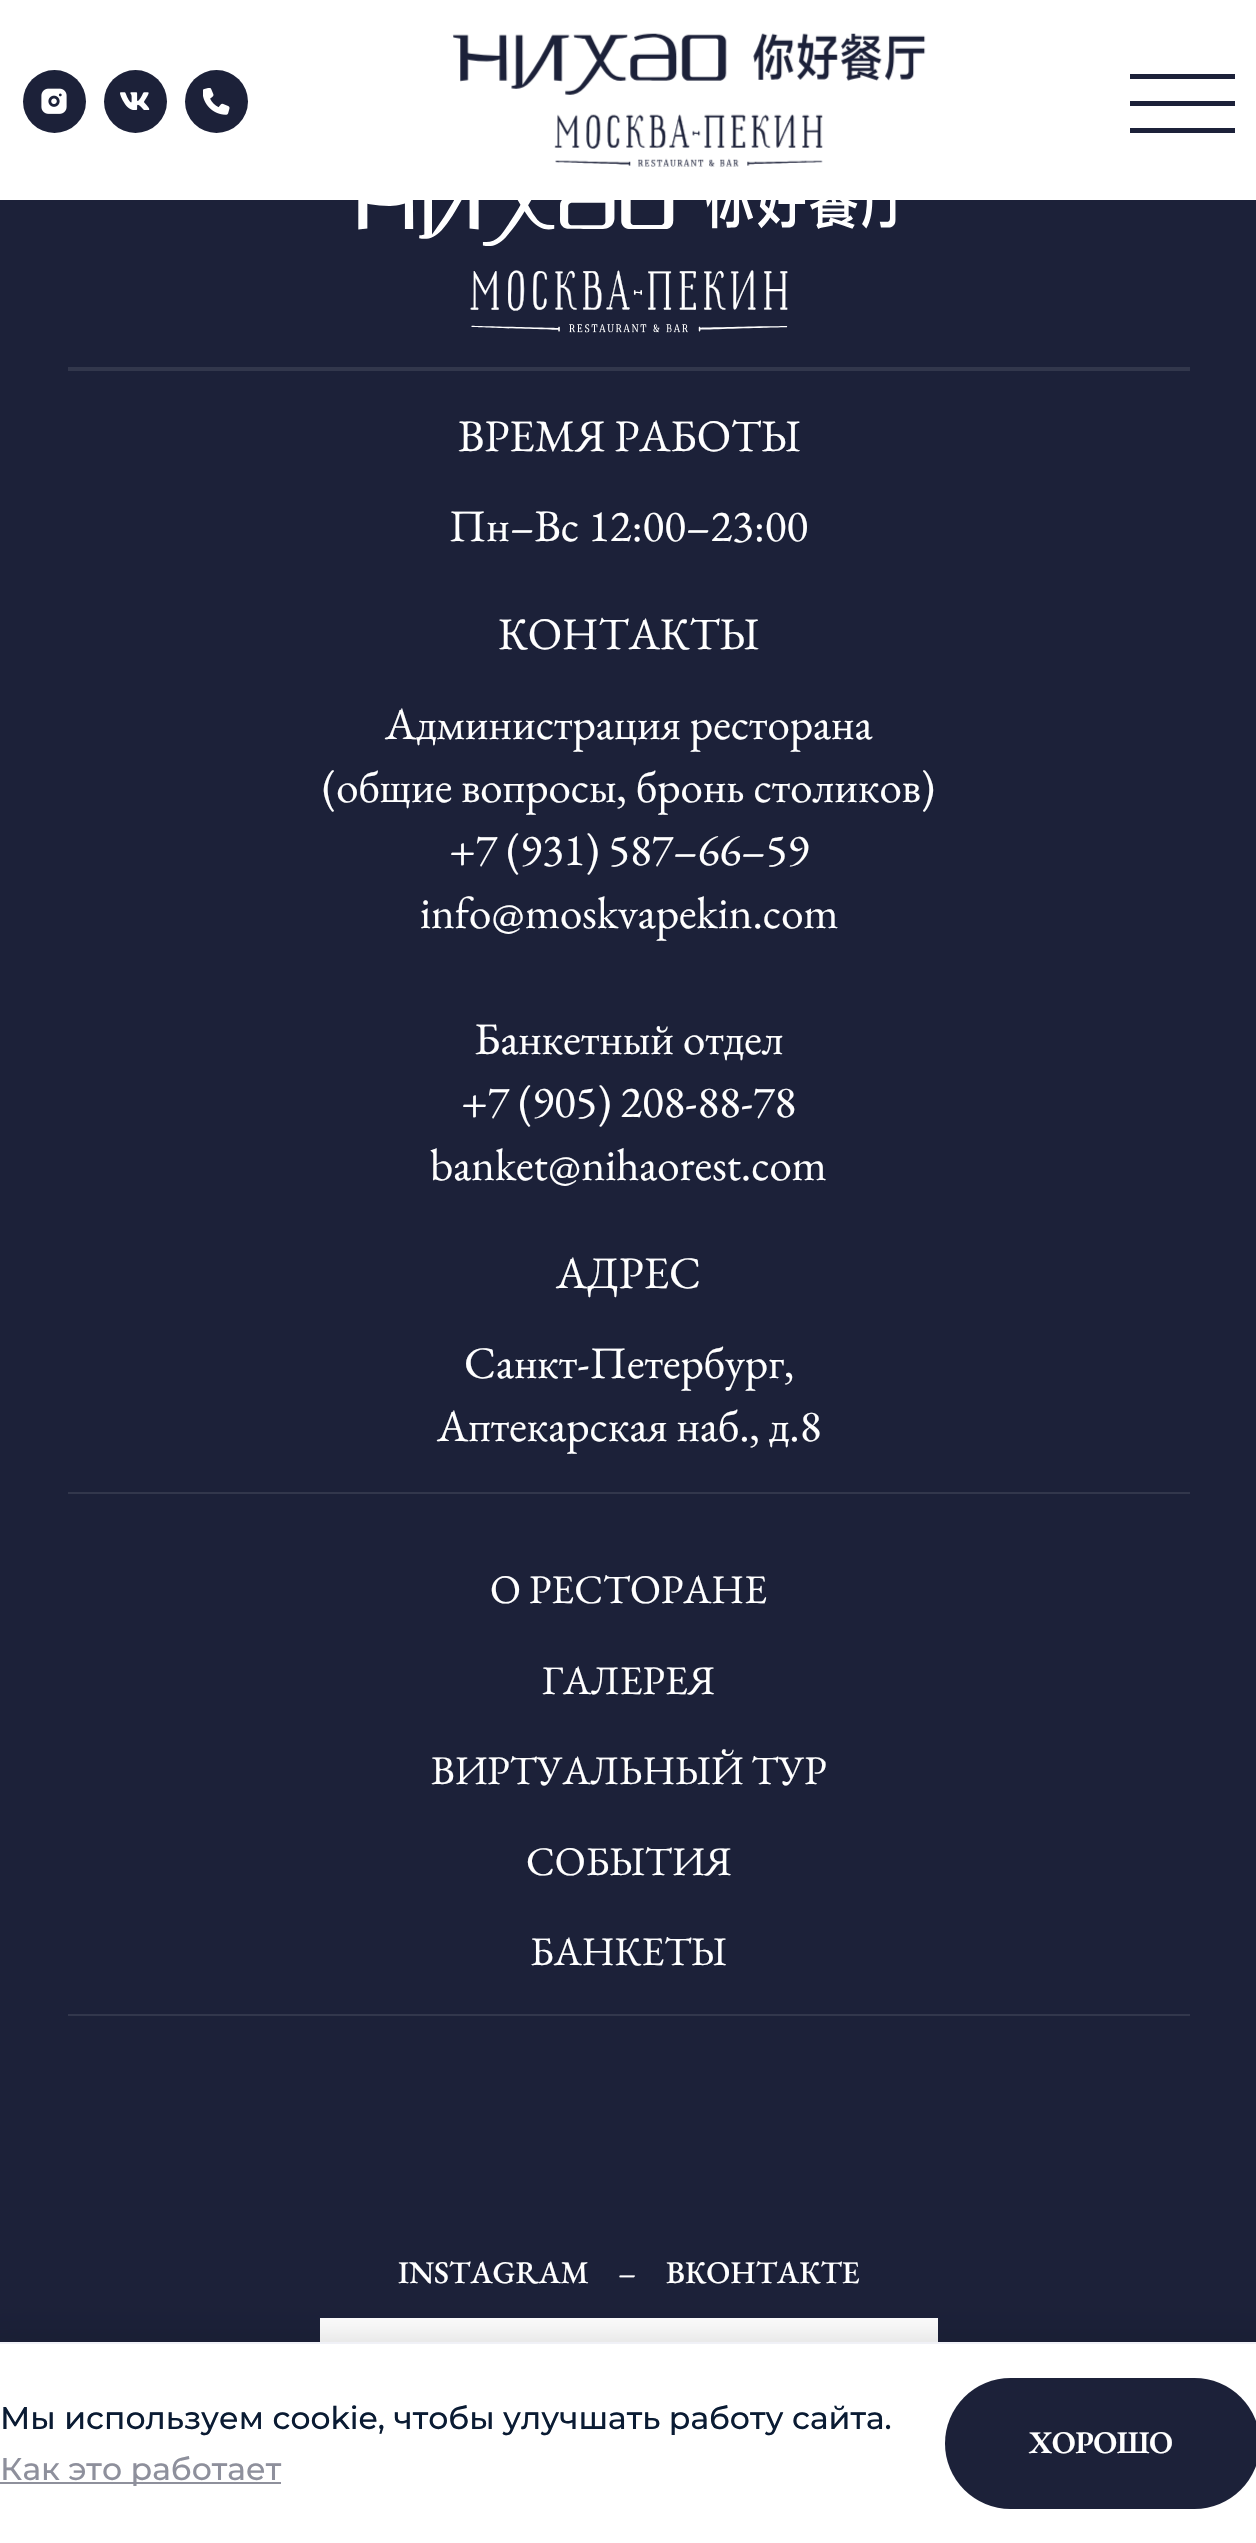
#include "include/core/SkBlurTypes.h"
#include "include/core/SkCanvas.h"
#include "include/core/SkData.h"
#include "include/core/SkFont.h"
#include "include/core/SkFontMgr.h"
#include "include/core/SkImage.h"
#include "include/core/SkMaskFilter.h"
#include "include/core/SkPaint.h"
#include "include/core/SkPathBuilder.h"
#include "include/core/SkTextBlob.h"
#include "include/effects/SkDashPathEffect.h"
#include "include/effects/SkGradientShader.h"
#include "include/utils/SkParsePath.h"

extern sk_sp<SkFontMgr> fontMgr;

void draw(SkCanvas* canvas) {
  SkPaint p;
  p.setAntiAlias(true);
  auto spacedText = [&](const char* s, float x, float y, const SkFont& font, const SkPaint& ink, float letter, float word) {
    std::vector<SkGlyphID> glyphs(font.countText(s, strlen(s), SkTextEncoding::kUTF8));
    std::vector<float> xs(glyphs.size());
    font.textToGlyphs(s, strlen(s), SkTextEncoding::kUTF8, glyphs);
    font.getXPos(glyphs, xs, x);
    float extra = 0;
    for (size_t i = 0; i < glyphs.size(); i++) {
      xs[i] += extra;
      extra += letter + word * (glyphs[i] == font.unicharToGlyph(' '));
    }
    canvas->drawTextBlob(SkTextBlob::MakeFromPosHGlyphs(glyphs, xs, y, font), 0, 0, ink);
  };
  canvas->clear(SkColorSetRGB(28, 33, 57));
  p.setColor(SK_ColorWHITE);
  canvas->drawRect(SkRect::MakeLTRB(0, 0, 1256, 200), p);
  p.setColor(SkColorSetRGB(28, 33, 57));
  canvas->drawCircle(54.5f, 101.5f, 31.5f, p);
  canvas->drawImageRect(SkImages::DeferredFromEncodedData(SkData::MakeFromFileName("images/1.png")), SkRect::MakeLTRB(41, 88, 67, 114), SkSamplingOptions());
  canvas->drawCircle(135.5f, 101.5f, 31.5f, p);
  canvas->drawImageRect(SkImages::DeferredFromEncodedData(SkData::MakeFromFileName("images/2.png")), SkRect::MakeLTRB(120, 92, 150, 110), SkSamplingOptions());
  canvas->drawCircle(216.5f, 101.5f, 31.5f, p);
  canvas->drawImageRect(SkImages::DeferredFromEncodedData(SkData::MakeFromFileName("images/3.png")), SkRect::MakeLTRB(203, 88, 230, 115), SkSamplingOptions());
  canvas->drawImageRect(SkImages::DeferredFromEncodedData(SkData::MakeFromFileName("images/4.png")), SkRect::MakeLTRB(452, 33, 926, 167), SkSamplingOptions());
  canvas->drawRect(SkRect::MakeLTRB(1130, 74, 1235, 79), p);
  canvas->drawRect(SkRect::MakeLTRB(1130, 101, 1235, 106), p);
  canvas->drawRect(SkRect::MakeLTRB(1130, 128, 1235, 133), p);
  p.setColor(SkColorSetRGB(50, 55, 76));
  canvas->drawRect(SkRect::MakeLTRB(68, 367, 1190, 371), p);
  canvas->drawImageRect(SkImages::DeferredFromEncodedData(SkData::MakeFromFileName("images/5.png")), SkRect::MakeLTRB(358, 200, 896, 333), SkSamplingOptions());
  canvas->drawRect(SkRect::MakeLTRB(68, 1492, 1190, 1494), p);
  canvas->drawRect(SkRect::MakeLTRB(68, 2014, 1190, 2016), p);
  p.setColor(SK_ColorWHITE);
  canvas->drawRect(SkRect::MakeLTRB(320, 2318, 938, 2342), p);
  p.setColor(SkColorSetARGB(48, 0, 0, 0));
  p.setMaskFilter(SkMaskFilter::MakeBlur(kNormal_SkBlurStyle, 22.5f));
  canvas->drawRoundRect(SkRect::MakeLTRB(-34, 2345, 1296, 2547), 23, 23, p);
  p.setMaskFilter(nullptr);
  p.setColor(SK_ColorWHITE);
  canvas->drawRect(SkRect::MakeLTRB(-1, 2343, 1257, 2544), p);
  p.setStyle(SkPaint::kStroke_Style);
  p.setStrokeWidth(2);
  p.setColor(SkColorSetRGB(240, 241, 247));
  canvas->drawRect(SkRect::MakeLTRB(-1, 2343, 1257, 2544), p);
  p.setStyle(SkPaint::kFill_Style);
  p.setColor(SkColorSetRGB(142, 144, 156));
  canvas->drawRect(SkRect::MakeLTRB(0, 2482, 281, 2484), p);
  p.setColor(SkColorSetRGB(28, 33, 57));
  canvas->drawRoundRect(SkRect::MakeLTRB(945, 2378, 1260, 2509), 65.5f, 65.5f, p);
  SkFont font1(fontMgr->matchFamilyStyle("EB Garamond", SkFontStyle::Normal()), 45);
  font1.setSubpixel(true);
  p.setColor(SK_ColorWHITE);
  canvas->drawString("ВРЕМЯ РАБОТЫ", 458, 451, font1, p);
  canvas->drawString("Пн–Вс 12:00–23:00", 449, 541, font1, p);
  canvas->drawString("КОНТАКТЫ", 498, 649, font1, p);
  canvas->drawString("Администрация ресторана", 385, 739, font1, p);
  canvas->drawString("(общие вопросы, бронь столиков)", 322, 802, font1, p);
  canvas->drawString("+7 (931) 587–66–59", 449, 865, font1, p);
  canvas->drawString("info@moskvapekin.com", 420, 928, font1, p);
  canvas->drawString("Банкетный отдел", 474, 1054, font1, p);
  canvas->drawString("+7 (905) 208-88-78", 461, 1117, font1, p);
  canvas->drawString("banket@nihaorest.com", 430, 1180, font1, p);
  canvas->drawString("АДРЕС", 556, 1288, font1, p);
  canvas->drawString("Санкт-Петербург,", 464, 1378, font1, p);
  canvas->drawString("Аптекарская наб., д.8", 437, 1441, font1, p);
  SkFont font2(fontMgr->matchFamilyStyle("EB Garamond", SkFontStyle::Normal()), 40.5f);
  font2.setSubpixel(true);
  canvas->drawString("О РЕСТОРАНЕ", 490, 1603, font2, p);
  canvas->drawString("ГАЛЕРЕЯ", 542, 1694, font2, p);
  canvas->drawString("ВИРТУАЛЬНЫЙ ТУР", 431, 1784, font2, p);
  canvas->drawString("СОБЫТИЯ", 526, 1875, font2, p);
  canvas->drawString("БАНКЕТЫ", 530, 1965, font2, p);
  SkFont font3(fontMgr->matchFamilyStyle("EB Garamond", SkFontStyle(500, SkFontStyle::kNormal_Width, SkFontStyle::kUpright_Slant)), 31.5f);
  font3.setSubpixel(true);
  canvas->drawString("INSTAGRAM", 398, 2283, font3, p);
  canvas->drawString("–", 618, 2283, font3, p);
  canvas->drawString("ВКОНТАКТЕ", 666, 2283, font3, p);
  SkFont font4(fontMgr->matchFamilyStyle("Montserrat", SkFontStyle(500, SkFontStyle::kNormal_Width, SkFontStyle::kUpright_Slant)), 31.5f);
  font4.setSubpixel(true);
  p.setColor(SkColorSetRGB(10, 27, 51));
  canvas->drawString("Мы используем cookie, чтобы улучшать работу сайта.", 0, 2429, font4, p);
  p.setColor(SkColorSetRGB(142, 144, 156));
  canvas->drawString("Как это работает", 0, 2480, font4, p);
  SkFont font5(fontMgr->matchFamilyStyle("EB Garamond", SkFontStyle(600, SkFontStyle::kNormal_Width, SkFontStyle::kUpright_Slant)), 31.5f);
  font5.setSubpixel(true);
  p.setColor(SK_ColorWHITE);
  spacedText("ХОРОШО", 1029, 2453, font5, p, -0.5f, 0);
}
